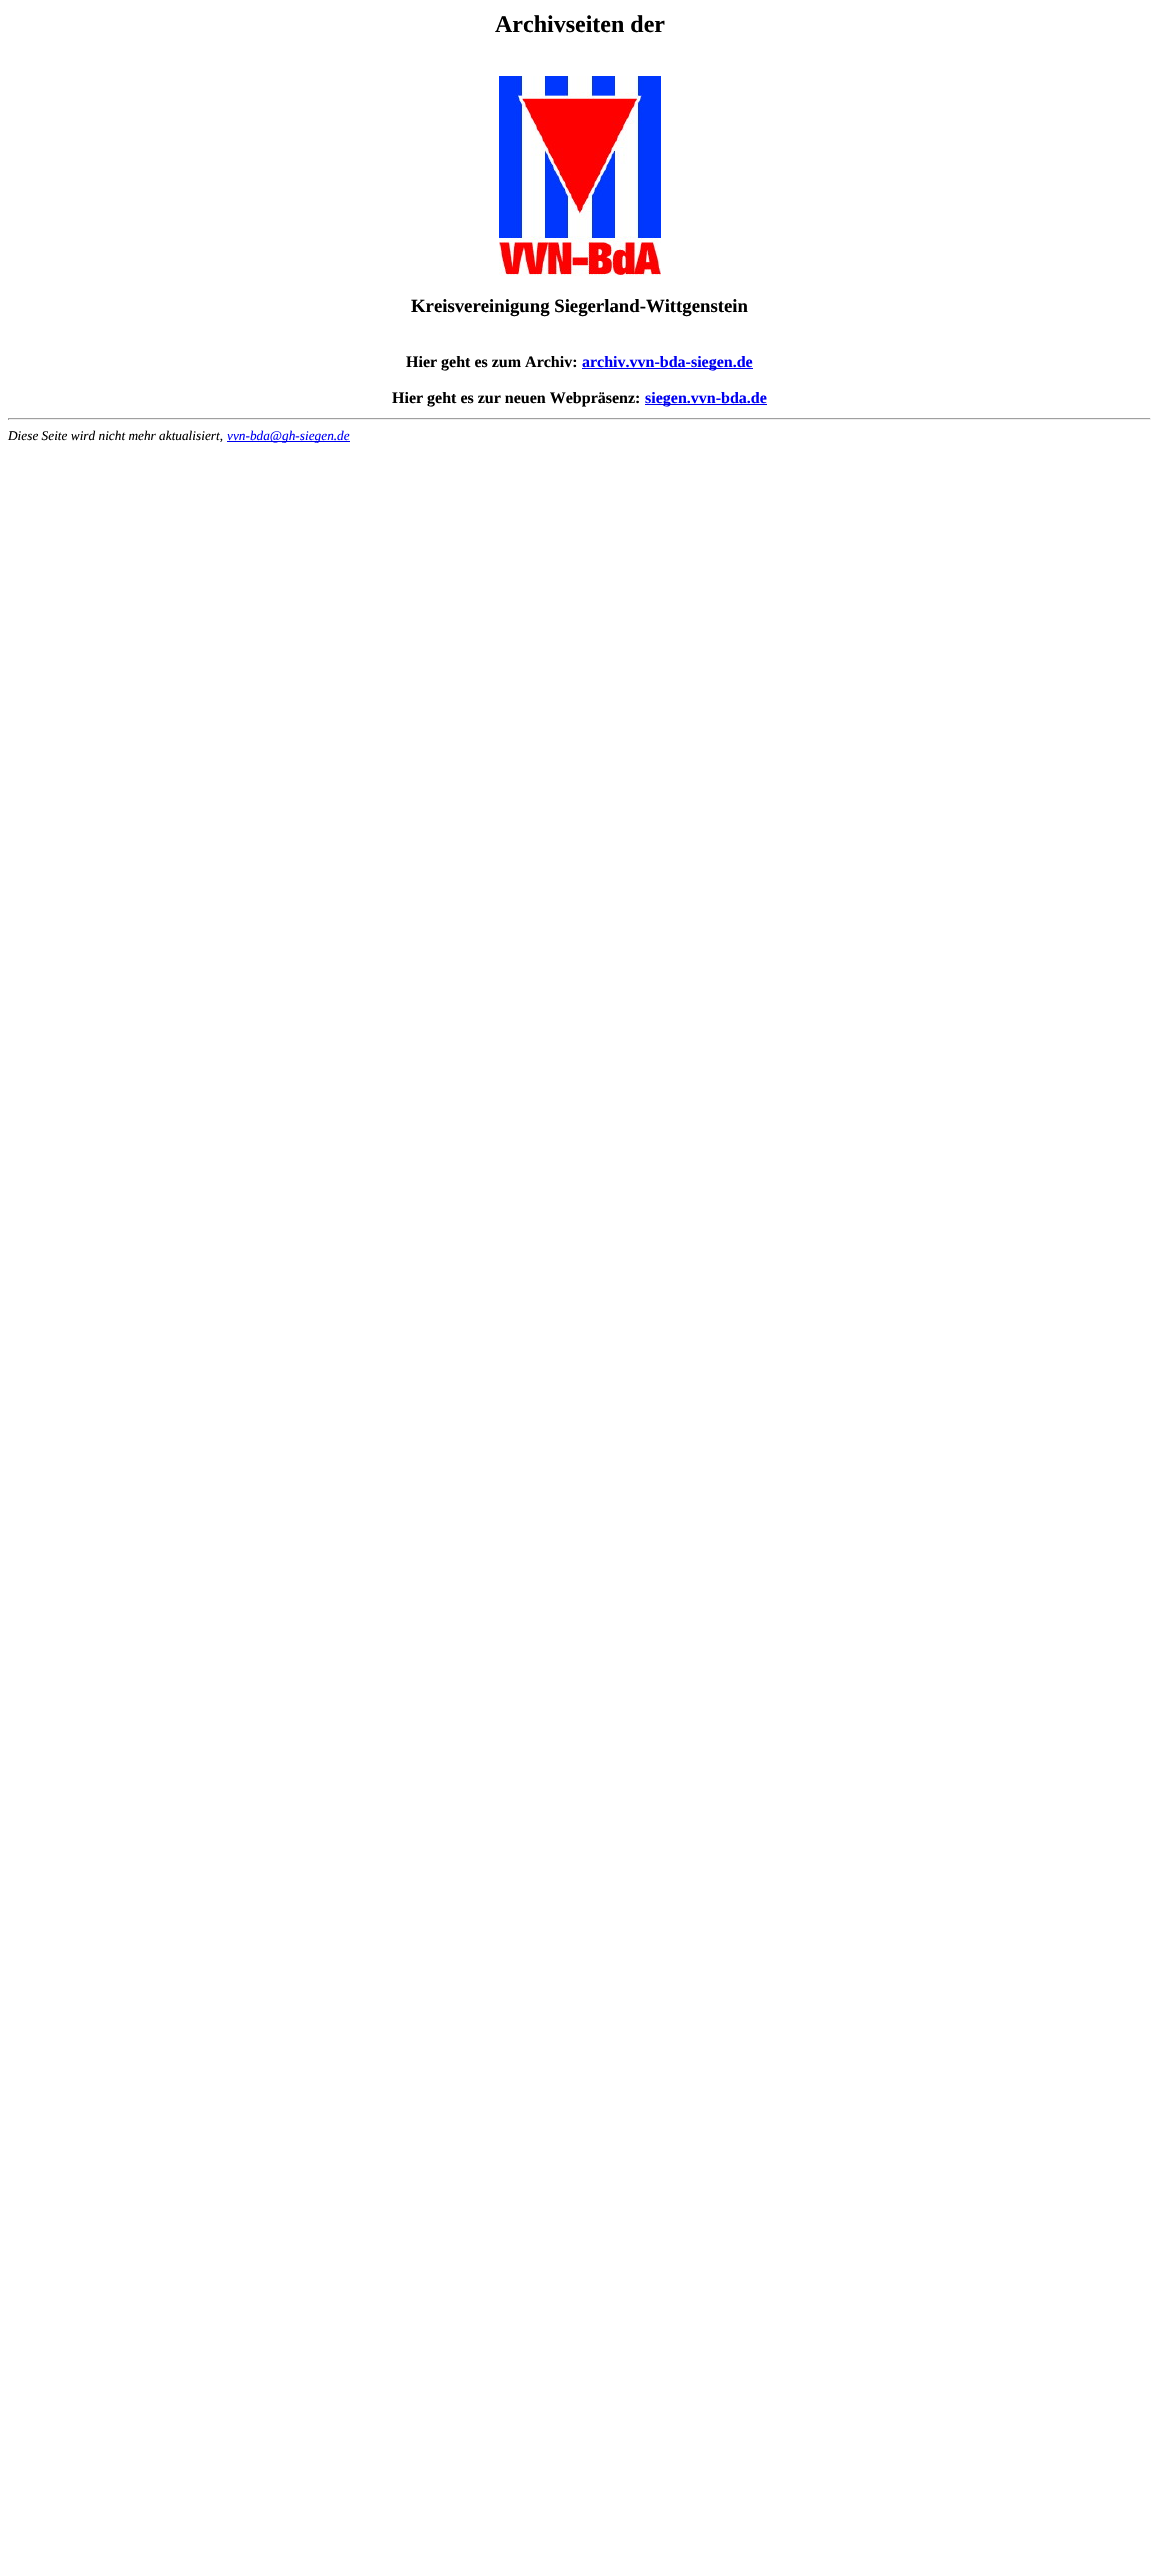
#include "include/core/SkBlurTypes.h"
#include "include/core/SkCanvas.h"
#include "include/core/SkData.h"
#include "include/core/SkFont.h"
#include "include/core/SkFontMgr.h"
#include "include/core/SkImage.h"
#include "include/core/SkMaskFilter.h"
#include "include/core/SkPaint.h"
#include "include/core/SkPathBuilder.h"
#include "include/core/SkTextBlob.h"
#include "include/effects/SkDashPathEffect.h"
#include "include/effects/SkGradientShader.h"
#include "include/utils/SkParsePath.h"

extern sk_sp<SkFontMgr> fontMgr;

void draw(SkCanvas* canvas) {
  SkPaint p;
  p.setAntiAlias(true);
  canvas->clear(SK_ColorWHITE);
  canvas->drawImageRect(SkImages::DeferredFromEncodedData(SkData::MakeFromFileName("images/1.png")), SkRect::MakeLTRB(499, 76, 661, 276), SkSamplingOptions());
  p.setColor(SkColorSetRGB(0, 0, 238));
  canvas->drawRect(SkRect::MakeLTRB(582, 368, 753, 369), p);
  canvas->drawRect(SkRect::MakeLTRB(645, 404, 767, 405), p);
  p.setColor(SkColorSetRGB(159, 159, 159));
  canvas->drawRect(SkRect::MakeLTRB(8, 418, 1151, 419), p);
  p.setColor(SkColorSetRGB(238, 238, 238));
  canvas->drawRect(SkRect::MakeLTRB(1150, 418, 1151, 420), p);
  canvas->drawRect(SkRect::MakeLTRB(8, 419, 1151, 420), p);
  p.setColor(SkColorSetRGB(159, 159, 159));
  canvas->drawRect(SkRect::MakeLTRB(8, 418, 9, 420), p);
  p.setColor(SkColorSetRGB(0, 0, 238));
  canvas->drawRect(SkRect::MakeLTRB(227, 441, 350, 442), p);
  SkFont font1(fontMgr->matchFamilyStyle("Liberation Serif", SkFontStyle::Bold()), 24);
  font1.setSubpixel(true);
  p.setColor(SK_ColorBLACK);
  canvas->drawString("Archivseiten der", 495, 32, font1, p);
  SkFont font2(fontMgr->matchFamilyStyle("Liberation Serif", SkFontStyle::Bold()), 18.75f);
  font2.setSubpixel(true);
  canvas->drawString("Kreisvereinigung Siegerland-Wittgenstein", 411, 312, font2, p);
  SkFont font3(fontMgr->matchFamilyStyle("Liberation Serif", SkFontStyle::Bold()), 16);
  font3.setSubpixel(true);
  canvas->drawString("Hier geht es zum Archiv:", 406, 367, font3, p);
  p.setColor(SkColorSetRGB(0, 0, 238));
  canvas->drawString("archiv.vvn-bda-siegen.de", 582, 367, font3, p);
  p.setColor(SK_ColorBLACK);
  canvas->drawString("Hier geht es zur neuen Webpräsenz:", 392, 403, font3, p);
  p.setColor(SkColorSetRGB(0, 0, 238));
  canvas->drawString("siegen.vvn-bda.de", 645, 403, font3, p);
  SkFont font4(fontMgr->matchFamilyStyle("Liberation Serif", SkFontStyle::Italic()), 13.3f);
  font4.setSubpixel(true);
  p.setColor(SK_ColorBLACK);
  canvas->drawString("Diese Seite wird nicht mehr aktualisiert,", 8, 440, font4, p);
  p.setColor(SkColorSetRGB(0, 0, 238));
  canvas->drawString("vvn-bda@gh-siegen.de", 227, 440, font4, p);
}
